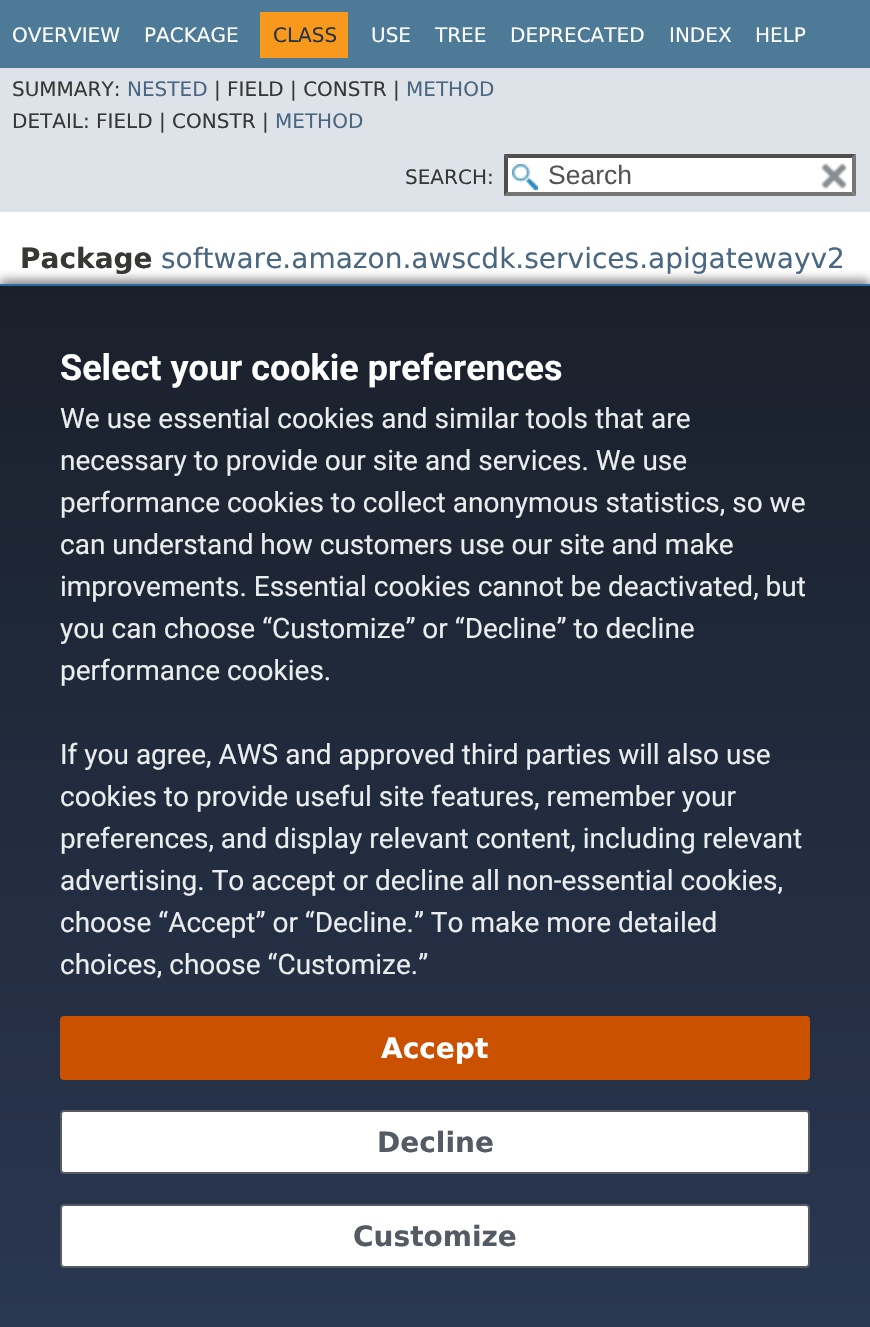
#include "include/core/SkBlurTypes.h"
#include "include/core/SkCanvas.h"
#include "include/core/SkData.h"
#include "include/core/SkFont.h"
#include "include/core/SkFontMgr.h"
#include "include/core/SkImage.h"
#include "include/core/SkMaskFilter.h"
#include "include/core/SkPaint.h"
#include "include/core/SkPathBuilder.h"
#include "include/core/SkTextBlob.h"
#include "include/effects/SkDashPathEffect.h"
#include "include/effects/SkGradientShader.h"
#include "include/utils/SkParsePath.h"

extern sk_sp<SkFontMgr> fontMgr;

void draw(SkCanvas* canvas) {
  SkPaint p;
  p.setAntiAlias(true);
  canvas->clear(SK_ColorWHITE);
  p.setColor(SkColorSetRGB(77, 122, 151));
  canvas->drawRect(SkRect::MakeLTRB(0, 0, 870, 68), p);
  p.setColor(SkColorSetRGB(248, 152, 29));
  canvas->drawRect(SkRect::MakeLTRB(260, 12, 348, 58), p);
  p.setColor(SkColorSetRGB(222, 227, 233));
  canvas->drawRect(SkRect::MakeLTRB(0, 68, 870, 212), p);
  p.setColor(SK_ColorWHITE);
  canvas->drawRect(SkRect::MakeLTRB(504, 154, 856, 196), p);
  canvas->drawImageRect(SkImages::DeferredFromEncodedData(SkData::MakeFromFileName("images/1.png")), SkRect::MakeLTRB(512, 164, 538, 190), SkSamplingOptions());
  p.setColor(SkColorSetRGB(79, 79, 79));
  canvas->drawPath(SkPathBuilder().moveTo(504, 154).lineTo(856, 154).lineTo(852, 158).lineTo(508, 158).close().detach(), p);
  p.setColor(SkColorSetRGB(118, 118, 118));
  canvas->drawPath(SkPathBuilder().moveTo(856, 154).lineTo(856, 196).lineTo(852, 192).lineTo(852, 158).close().detach(), p);
  canvas->drawPath(SkPathBuilder().moveTo(856, 196).lineTo(504, 196).lineTo(508, 192).lineTo(852, 192).close().detach(), p);
  p.setColor(SkColorSetRGB(79, 79, 79));
  canvas->drawPath(SkPathBuilder().moveTo(504, 196).lineTo(504, 154).lineTo(508, 158).lineTo(508, 192).close().detach(), p);
  canvas->drawImageRect(SkImages::DeferredFromEncodedData(SkData::MakeFromFileName("images/2.png")), SkRect::MakeLTRB(820, 162, 847, 189), SkSamplingOptions());
  p.setColor(SkColorSetRGB(159, 159, 159));
  canvas->drawRect(SkRect::MakeLTRB(20, 1016, 850, 1018), p);
  p.setColor(SkColorSetRGB(238, 238, 238));
  canvas->drawRect(SkRect::MakeLTRB(848, 1016, 850, 1020), p);
  canvas->drawRect(SkRect::MakeLTRB(20, 1018, 850, 1020), p);
  p.setColor(SkColorSetRGB(159, 159, 159));
  canvas->drawRect(SkRect::MakeLTRB(20, 1016, 22, 1020), p);
  canvas->save();
  canvas->clipRect(SkRect::MakeLTRB(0, 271, 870, 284));
  p.setColor(SkColorSetARGB(128, 0, 0, 0));
  p.setMaskFilter(SkMaskFilter::MakeBlur(kNormal_SkBlurStyle, 5));
  canvas->drawRect(SkRect::MakeLTRB(0, 280, 870, 1324), p);
  p.setMaskFilter(nullptr);
  canvas->restore();
  {
    const SkColor colors[] = {SkColorSetARGB(250, 21, 28, 39), SkColorSetARGB(250, 38, 51, 77)};
    const float stops[] = {0, 1};
    const SkPoint ends[] = {{435, 286}, {435, 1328}};
    p.setShader(SkGradientShader::MakeLinear(ends, colors, stops, 2, SkTileMode::kClamp));
    p.setAlpha(255);
  }
  canvas->drawRect(SkRect::MakeLTRB(0, 286, 870, 1327), p);
  p.setShader(nullptr);
  p.setColor(SkColorSetRGB(48, 109, 163));
  canvas->drawRect(SkRect::MakeLTRB(0, 284, 870, 286), p);
  p.setColor(SkColorSetRGB(201, 81, 0));
  canvas->drawRoundRect(SkRect::MakeLTRB(61, 1017, 809, 1079), 3, 3, p);
  p.setStyle(SkPaint::kStroke_Style);
  p.setStrokeWidth(2);
  canvas->drawRoundRect(SkRect::MakeLTRB(61, 1017, 809, 1079), 3, 3, p);
  p.setStyle(SkPaint::kFill_Style);
  p.setColor(SK_ColorWHITE);
  canvas->drawRoundRect(SkRect::MakeLTRB(61, 1111, 809, 1173), 3, 3, p);
  p.setStyle(SkPaint::kStroke_Style);
  p.setColor(SkColorSetRGB(84, 91, 100));
  canvas->drawRoundRect(SkRect::MakeLTRB(61, 1111, 809, 1173), 3, 3, p);
  p.setStyle(SkPaint::kFill_Style);
  p.setColor(SK_ColorWHITE);
  canvas->drawRoundRect(SkRect::MakeLTRB(61, 1205, 809, 1267), 3, 3, p);
  p.setStyle(SkPaint::kStroke_Style);
  p.setColor(SkColorSetRGB(84, 91, 100));
  canvas->drawRoundRect(SkRect::MakeLTRB(61, 1205, 809, 1267), 3, 3, p);
  SkFont font1(fontMgr->matchFamilyStyle("DejaVu Sans", SkFontStyle::Normal()), 20);
  font1.setSubpixel(true);
  p.setStyle(SkPaint::kFill_Style);
  p.setColor(SK_ColorWHITE);
  canvas->drawString("OVERVIEW", 12, 42, font1, p);
  canvas->drawString("PACKAGE", 144, 42, font1, p);
  p.setColor(SkColorSetRGB(37, 52, 65));
  canvas->drawString("CLASS", 273, 42, font1, p);
  p.setColor(SK_ColorWHITE);
  canvas->drawString("USE", 371, 42, font1, p);
  canvas->drawString("TREE", 435, 42, font1, p);
  canvas->drawString("DEPRECATED", 510, 42, font1, p);
  canvas->drawString("INDEX", 669, 42, font1, p);
  canvas->drawString("HELP", 755, 42, font1, p);
  p.setColor(SkColorSetRGB(53, 56, 51));
  canvas->drawString("SUMMARY:", 12, 96, font1, p);
  p.setColor(SkColorSetRGB(74, 103, 130));
  canvas->drawString("NESTED", 127, 96, font1, p);
  p.setColor(SkColorSetRGB(53, 56, 51));
  canvas->drawString("| FIELD | CONSTR |", 214, 96, font1, p);
  p.setColor(SkColorSetRGB(74, 103, 130));
  canvas->drawString("METHOD", 406, 96, font1, p);
  p.setColor(SkColorSetRGB(53, 56, 51));
  canvas->drawString("DETAIL: FIELD | CONSTR |", 12, 128, font1, p);
  p.setColor(SkColorSetRGB(74, 103, 130));
  canvas->drawString("METHOD", 275, 128, font1, p);
  p.setColor(SkColorSetRGB(53, 56, 51));
  canvas->drawString("SEARCH:", 405, 184, font1, p);
  SkFont font2(fontMgr->matchFamilyStyle("Liberation Sans", SkFontStyle::Normal()), 26.5f);
  font2.setSubpixel(true);
  p.setColor(SkColorSetRGB(84, 84, 84));
  canvas->drawString("Search", 548, 184, font2, p);
  SkFont font3(fontMgr->matchFamilyStyle("DejaVu Sans", SkFontStyle::Bold()), 28);
  font3.setSubpixel(true);
  p.setColor(SkColorSetRGB(53, 56, 51));
  canvas->drawString("Package", 20, 268, font3, p);
  SkFont font4(fontMgr->matchFamilyStyle("DejaVu Sans", SkFontStyle::Normal()), 28);
  font4.setSubpixel(true);
  p.setColor(SkColorSetRGB(74, 103, 130));
  canvas->drawString("software.amazon.awscdk.services.apigatewayv2", 161, 268, font4, p);
  SkFont font5(fontMgr->matchFamilyStyle("Roboto", SkFontStyle::Bold()), 36);
  font5.setSubpixel(true);
  p.setColor(SK_ColorWHITE);
  canvas->drawString("Select your cookie preferences", 60, 380, font5, p);
  SkFont font6(fontMgr->matchFamilyStyle("Roboto", SkFontStyle::Normal()), 28);
  font6.setSubpixel(true);
  p.setColor(SkColorSetRGB(234, 237, 237));
  canvas->drawString("We use essential cookies and similar tools that are", 60, 428, font6, p);
  canvas->drawString("necessary to provide our site and services. We use", 60, 470, font6, p);
  canvas->drawString("performance cookies to collect anonymous statistics, so we", 60, 512, font6, p);
  canvas->drawString("can understand how customers use our site and make", 60, 554, font6, p);
  canvas->drawString("improvements. Essential cookies cannot be deactivated, but", 60, 596, font6, p);
  canvas->drawString("you can choose “Customize” or “Decline” to decline", 60, 638, font6, p);
  canvas->drawString("performance cookies.", 60, 680, font6, p);
  canvas->drawString("If you agree, AWS and approved third parties will also use", 60, 764, font6, p);
  canvas->drawString("cookies to provide useful site features, remember your", 60, 806, font6, p);
  canvas->drawString("preferences, and display relevant content, including relevant", 60, 848, font6, p);
  canvas->drawString("advertising. To accept or decline all non-essential cookies,", 60, 890, font6, p);
  canvas->drawString("choose “Accept” or “Decline.” To make more detailed", 60, 932, font6, p);
  canvas->drawString("choices, choose “Customize.”", 60, 974, font6, p);
  p.setColor(SK_ColorWHITE);
  canvas->drawString("Accept", 381, 1058, font3, p);
  p.setColor(SkColorSetRGB(84, 91, 100));
  canvas->drawString("Decline", 377, 1152, font3, p);
  canvas->drawString("Customize", 353, 1246, font3, p);
}
